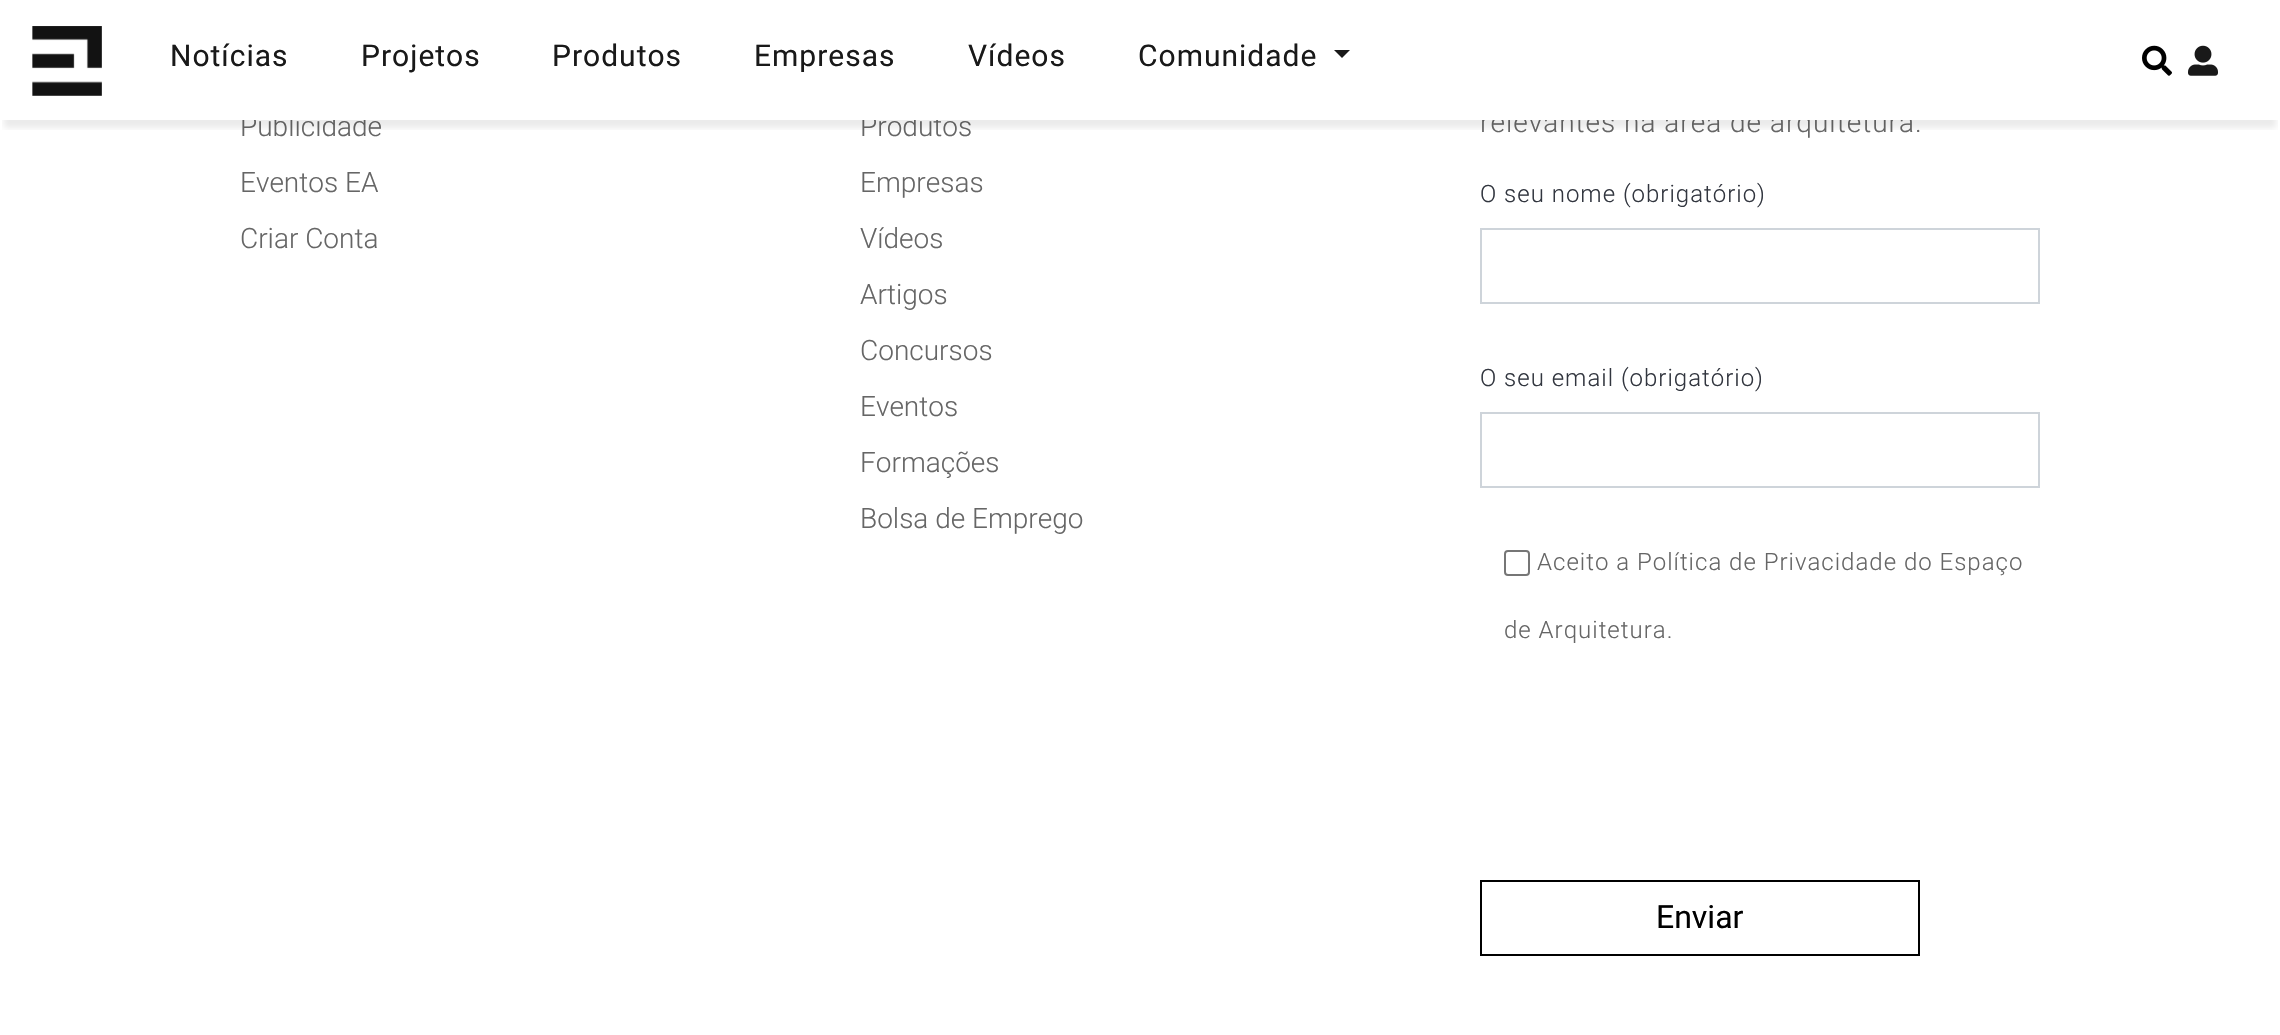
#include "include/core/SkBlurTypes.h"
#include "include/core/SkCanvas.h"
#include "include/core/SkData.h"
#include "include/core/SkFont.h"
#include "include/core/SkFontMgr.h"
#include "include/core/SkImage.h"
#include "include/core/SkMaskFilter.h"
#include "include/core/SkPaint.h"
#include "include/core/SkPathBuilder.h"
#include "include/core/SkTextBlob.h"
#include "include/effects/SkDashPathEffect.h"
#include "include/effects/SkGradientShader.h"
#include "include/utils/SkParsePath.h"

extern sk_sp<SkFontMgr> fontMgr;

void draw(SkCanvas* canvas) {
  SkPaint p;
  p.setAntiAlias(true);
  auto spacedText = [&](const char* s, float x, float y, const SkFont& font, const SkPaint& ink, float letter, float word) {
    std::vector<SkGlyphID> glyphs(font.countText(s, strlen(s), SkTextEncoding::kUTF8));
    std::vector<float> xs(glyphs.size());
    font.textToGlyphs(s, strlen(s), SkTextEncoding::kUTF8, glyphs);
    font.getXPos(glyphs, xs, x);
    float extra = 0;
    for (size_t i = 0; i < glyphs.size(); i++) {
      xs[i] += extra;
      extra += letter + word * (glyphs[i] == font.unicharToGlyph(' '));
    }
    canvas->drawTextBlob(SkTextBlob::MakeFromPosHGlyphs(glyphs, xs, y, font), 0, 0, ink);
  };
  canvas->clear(SK_ColorWHITE);
  p.setStyle(SkPaint::kStroke_Style);
  p.setStrokeWidth(2);
  p.setColor(SkColorSetRGB(206, 212, 218));
  canvas->drawRect(SkRect::MakeLTRB(1481, 229, 2039, 303), p);
  canvas->drawRect(SkRect::MakeLTRB(1481, 413, 2039, 487), p);
  p.setColor(SkColorSetRGB(118, 118, 118));
  canvas->drawRoundRect(SkRect::MakeLTRB(1505, 551, 1529, 575), 3, 3, p);
  p.setColor(SK_ColorBLACK);
  canvas->drawRect(SkRect::MakeLTRB(1481, 881, 1919, 955), p);
  SkFont font1(fontMgr->matchFamilyStyle("Roboto", SkFontStyle(300, SkFontStyle::kNormal_Width, SkFontStyle::kUpright_Slant)), 28);
  font1.setSubpixel(true);
  p.setStyle(SkPaint::kFill_Style);
  p.setColor(SkColorSetRGB(102, 102, 102));
  canvas->drawString("Publicidade", 240, 136, font1, p);
  canvas->drawString("Eventos EA", 240, 192, font1, p);
  canvas->drawString("Criar Conta", 240, 248, font1, p);
  canvas->drawString("Produtos", 860, 136, font1, p);
  canvas->drawString("Empresas", 860, 192, font1, p);
  canvas->drawString("Vídeos", 860, 248, font1, p);
  canvas->drawString("Artigos", 860, 304, font1, p);
  canvas->drawString("Concursos", 860, 360, font1, p);
  canvas->drawString("Eventos", 860, 416, font1, p);
  canvas->drawString("Formações", 860, 472, font1, p);
  canvas->drawString("Bolsa de Emprego", 860, 528, font1, p);
  spacedText("relevantes na área de arquitetura.", 1480, 132, font1, p, 1, 0);
  p.setColor(SK_ColorWHITE);
  canvas->drawRect(SkRect::MakeLTRB(242, 111, 1912, 120), p);
  canvas->save();
  canvas->clipRect(SkRect::MakeLTRB(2, 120, 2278, 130));
  p.setColor(SkColorSetARGB(20, 0, 0, 0));
  p.setMaskFilter(SkMaskFilter::MakeBlur(kNormal_SkBlurStyle, 3));
  canvas->drawRect(SkRect::MakeLTRB(4, 16, 2276, 128), p);
  p.setMaskFilter(nullptr);
  canvas->restore();
  canvas->drawImageRect(SkImages::DeferredFromEncodedData(SkData::MakeFromFileName("images/2.png")), SkRect::MakeLTRB(2142, 45, 2172, 76), SkSamplingOptions());
  p.setColor(SkColorSetRGB(25, 25, 25));
  canvas->drawPath(SkPathBuilder().moveTo(1334, 50).lineTo(1350, 50).lineTo(1342, 58).close().detach(), p);
  SkFont font2(fontMgr->matchFamilyStyle("Roboto", SkFontStyle::Normal()), 30);
  font2.setSubpixel(true);
  spacedText("Comunidade", 1138, 66, font2, p, 1, 0);
  canvas->drawImageRect(SkImages::DeferredFromEncodedData(SkData::MakeFromFileName("images/3.png")), SkRect::MakeLTRB(2188, 45, 2218, 76), SkSamplingOptions());
  spacedText("Vídeos", 968, 66, font2, p, 1, 0);
  spacedText("Empresas", 754, 66, font2, p, 1, 0);
  spacedText("Produtos", 552, 66, font2, p, 1, 0);
  spacedText("Projetos", 361, 66, font2, p, 1, 0);
  spacedText("Notícias", 170, 66, font2, p, 1, 0);
  canvas->drawImageRect(SkImages::DeferredFromEncodedData(SkData::MakeFromFileName("images/1.png")), SkRect::MakeLTRB(32, 26, 102, 96), SkSamplingOptions());
  SkFont font3(fontMgr->matchFamilyStyle("Roboto", SkFontStyle(300, SkFontStyle::kNormal_Width, SkFontStyle::kUpright_Slant)), 24);
  font3.setSubpixel(true);
  p.setColor(SkColorSetRGB(50, 54, 63));
  spacedText("O seu nome (obrigatório)", 1480, 202, font3, p, 1, 0);
  spacedText("O seu email (obrigatório)", 1480, 386, font3, p, 1, 0);
  p.setColor(SkColorSetRGB(102, 102, 102));
  spacedText("Aceito a Política de Privacidade do Espaço", 1537, 570, font3, p, 1, 0);
  spacedText("de Arquitetura.", 1504, 638, font3, p, 1, 0);
  SkFont font4(fontMgr->matchFamilyStyle("Roboto", SkFontStyle::Normal()), 32);
  font4.setSubpixel(true);
  p.setColor(SK_ColorBLACK);
  canvas->drawString("Enviar", 1656, 928, font4, p);
}
